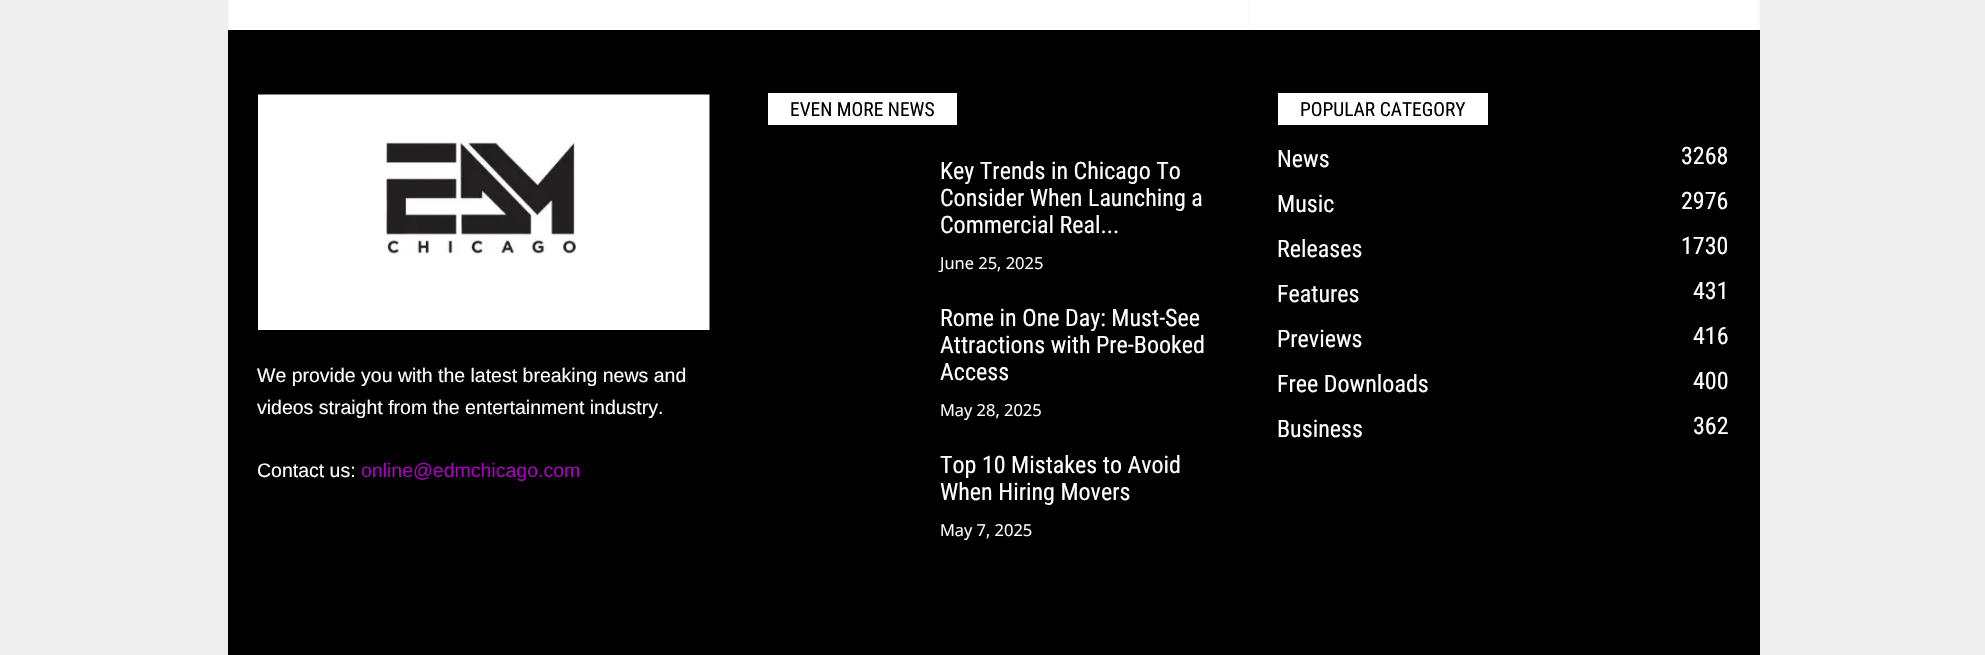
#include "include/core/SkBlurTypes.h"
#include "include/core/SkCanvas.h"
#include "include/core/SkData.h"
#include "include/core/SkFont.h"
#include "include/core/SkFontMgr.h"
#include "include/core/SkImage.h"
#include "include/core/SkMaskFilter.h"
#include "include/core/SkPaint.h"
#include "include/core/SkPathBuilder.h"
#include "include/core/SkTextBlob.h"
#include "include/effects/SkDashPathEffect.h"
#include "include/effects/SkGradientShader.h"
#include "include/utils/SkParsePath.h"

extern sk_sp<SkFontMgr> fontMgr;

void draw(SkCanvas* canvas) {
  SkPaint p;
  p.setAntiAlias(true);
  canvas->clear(SkColorSetRGB(239, 239, 239));
  p.setColor(SK_ColorWHITE);
  canvas->drawRect(SkRect::MakeLTRB(230, 0, 1758, 29), p);
  p.setColor(SkColorSetRGB(252, 252, 252));
  canvas->drawRect(SkRect::MakeLTRB(228, 29, 1760, 30), p);
  canvas->drawRect(SkRect::MakeLTRB(228, 0, 230, 29), p);
  canvas->drawRect(SkRect::MakeLTRB(1248, 0, 1250, 29), p);
  p.setColor(SkColorSetRGB(249, 249, 249));
  canvas->drawRect(SkRect::MakeLTRB(1758, 0, 1760, 29), p);
  p.setColor(SK_ColorBLACK);
  canvas->drawRect(SkRect::MakeLTRB(228, 30, 1760, 655), p);
  canvas->drawImageRect(SkImages::DeferredFromEncodedData(SkData::MakeFromFileName("images/1.png")), SkRect::MakeLTRB(258, 94, 710, 330), SkSamplingOptions());
  p.setColor(SK_ColorWHITE);
  canvas->drawRect(SkRect::MakeLTRB(768, 93, 957, 125), p);
  canvas->drawRect(SkRect::MakeLTRB(1278, 93, 1488, 125), p);
  SkFont font1(fontMgr->matchFamilyStyle("Liberation Sans", SkFontStyle::Normal()), 19.5f);
  font1.setSubpixel(true);
  canvas->drawString("We provide you with the latest breaking news and", 257, 382, font1, p);
  canvas->drawString("videos straight from the entertainment industry.", 257, 414, font1, p);
  canvas->drawString("Contact us:", 257, 477, font1, p);
  p.setColor(SkColorSetRGB(168, 1, 190));
  canvas->drawString("online@edmchicago.com", 361, 477, font1, p);
  SkFont font2(fontMgr->matchFamilyStyle("Roboto Condensed", SkFontStyle::Normal()), 19.5f);
  font2.setSubpixel(true);
  p.setColor(SK_ColorBLACK);
  canvas->drawString("EVEN MORE NEWS", 790, 116, font2, p);
  SkFont font3(fontMgr->matchFamilyStyle("Roboto Condensed", SkFontStyle::Normal()), 24);
  font3.setSubpixel(true);
  p.setColor(SK_ColorWHITE);
  canvas->drawString("Key Trends in Chicago To", 940, 179, font3, p);
  canvas->drawString("Consider When Launching a", 940, 206, font3, p);
  canvas->drawString("Commercial Real...", 940, 233, font3, p);
  SkFont font4(fontMgr->matchFamilyStyle("Open Sans", SkFontStyle::Normal()), 16.5f);
  font4.setSubpixel(true);
  canvas->drawString("June 25, 2025", 940, 269, font4, p);
  canvas->drawString("Rome in One Day: Must-See", 940, 326, font3, p);
  canvas->drawString("Attractions with Pre-Booked", 940, 353, font3, p);
  canvas->drawString("Access", 940, 380, font3, p);
  canvas->drawString("May 28, 2025", 940, 416, font4, p);
  canvas->drawString("Top 10 Mistakes to Avoid", 940, 473, font3, p);
  canvas->drawString("When Hiring Movers", 940, 500, font3, p);
  canvas->drawString("May 7, 2025", 940, 536, font4, p);
  p.setColor(SK_ColorBLACK);
  canvas->drawString("POPULAR CATEGORY", 1300, 116, font2, p);
  p.setColor(SK_ColorWHITE);
  canvas->drawString("News", 1277, 167, font3, p);
  canvas->drawString("3268", 1681, 164, font3, p);
  canvas->drawString("Music", 1277, 212, font3, p);
  canvas->drawString("2976", 1681, 209, font3, p);
  canvas->drawString("Releases", 1277, 257, font3, p);
  canvas->drawString("1730", 1681, 254, font3, p);
  canvas->drawString("Features", 1277, 302, font3, p);
  canvas->drawString("431", 1693, 299, font3, p);
  canvas->drawString("Previews", 1277, 347, font3, p);
  canvas->drawString("416", 1693, 344, font3, p);
  canvas->drawString("Free Downloads", 1277, 392, font3, p);
  canvas->drawString("400", 1693, 389, font3, p);
  canvas->drawString("Business", 1277, 437, font3, p);
  canvas->drawString("362", 1693, 434, font3, p);
}
